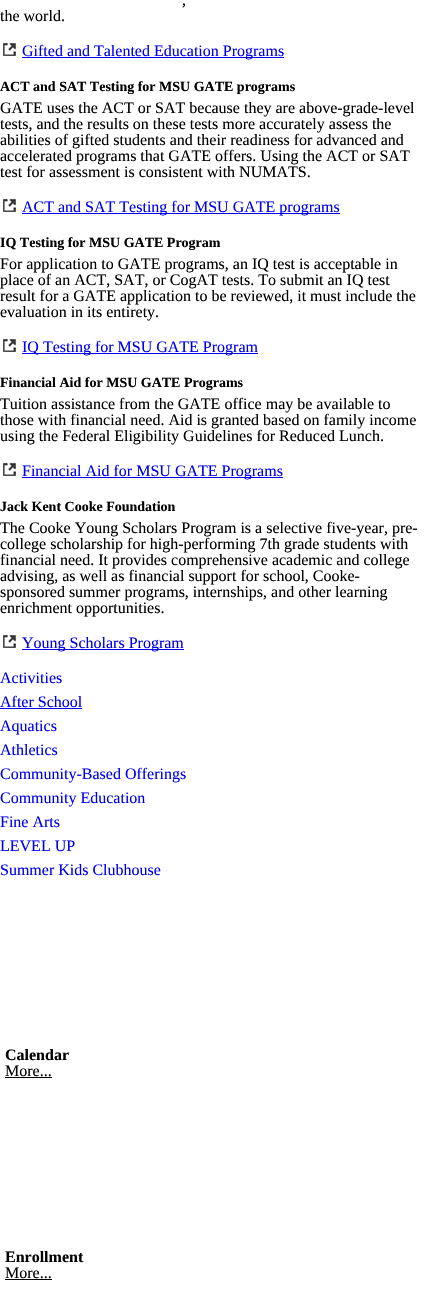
#include "include/core/SkBlurTypes.h"
#include "include/core/SkCanvas.h"
#include "include/core/SkData.h"
#include "include/core/SkFont.h"
#include "include/core/SkFontMgr.h"
#include "include/core/SkImage.h"
#include "include/core/SkMaskFilter.h"
#include "include/core/SkPaint.h"
#include "include/core/SkPathBuilder.h"
#include "include/core/SkTextBlob.h"
#include "include/effects/SkDashPathEffect.h"
#include "include/effects/SkGradientShader.h"
#include "include/utils/SkParsePath.h"

extern sk_sp<SkFontMgr> fontMgr;

void draw(SkCanvas* canvas) {
  SkPaint p;
  p.setAntiAlias(true);
  canvas->clear(SK_ColorWHITE);
  canvas->drawImageRect(SkImages::DeferredFromEncodedData(SkData::MakeFromFileName("images/1.png")), SkRect::MakeLTRB(3, 43, 16, 56), SkSamplingOptions());
  p.setColor(SkColorSetRGB(0, 0, 238));
  canvas->drawRect(SkRect::MakeLTRB(22, 57, 284, 58), p);
  canvas->drawImageRect(SkImages::DeferredFromEncodedData(SkData::MakeFromFileName("images/1.png")), SkRect::MakeLTRB(3, 199, 16, 212), SkSamplingOptions());
  canvas->drawRect(SkRect::MakeLTRB(22, 213, 340, 214), p);
  canvas->drawImageRect(SkImages::DeferredFromEncodedData(SkData::MakeFromFileName("images/1.png")), SkRect::MakeLTRB(3, 339, 16, 352), SkSamplingOptions());
  canvas->drawRect(SkRect::MakeLTRB(22, 353, 258, 354), p);
  canvas->drawImageRect(SkImages::DeferredFromEncodedData(SkData::MakeFromFileName("images/1.png")), SkRect::MakeLTRB(3, 463, 16, 476), SkSamplingOptions());
  canvas->drawRect(SkRect::MakeLTRB(22, 477, 283, 478), p);
  canvas->drawImageRect(SkImages::DeferredFromEncodedData(SkData::MakeFromFileName("images/1.png")), SkRect::MakeLTRB(3, 635, 16, 648), SkSamplingOptions());
  canvas->drawRect(SkRect::MakeLTRB(22, 649, 184, 650), p);
  canvas->drawRect(SkRect::MakeLTRB(0, 708, 82, 709), p);
  p.setColor(SK_ColorBLACK);
  canvas->drawRect(SkRect::MakeLTRB(5, 1077, 52, 1078), p);
  canvas->drawRect(SkRect::MakeLTRB(5, 1279, 52, 1280), p);
  SkFont font1(fontMgr->matchFamilyStyle("Liberation Serif", SkFontStyle::Normal()), 16);
  font1.setSubpixel(true);
  canvas->drawString(",", 182, 5, font1, p);
  canvas->drawString("the world.", 0, 21, font1, p);
  p.setColor(SkColorSetRGB(0, 0, 238));
  canvas->drawString("Gifted and Talented Education Programs", 22, 56, font1, p);
  SkFont font2(fontMgr->matchFamilyStyle("Liberation Serif", SkFontStyle::Bold()), 14);
  font2.setSubpixel(true);
  p.setColor(SK_ColorBLACK);
  canvas->drawString("ACT and SAT Testing for MSU GATE programs", 0, 91, font2, p);
  canvas->drawString("GATE uses the ACT or SAT because they are above-grade-level", 0, 113, font1, p);
  canvas->drawString("tests, and the results on these tests more accurately assess the", 0, 129, font1, p);
  canvas->drawString("abilities of gifted students and their readiness for advanced and", 0, 145, font1, p);
  canvas->drawString("accelerated programs that GATE offers. Using the ACT or SAT", 0, 161, font1, p);
  canvas->drawString("test for assessment is consistent with NUMATS.", 0, 177, font1, p);
  p.setColor(SkColorSetRGB(0, 0, 238));
  canvas->drawString("ACT and SAT Testing for MSU GATE programs", 22, 212, font1, p);
  p.setColor(SK_ColorBLACK);
  canvas->drawString("IQ Testing for MSU GATE Program", 0, 247, font2, p);
  canvas->drawString("For application to GATE programs, an IQ test is acceptable in", 0, 269, font1, p);
  canvas->drawString("place of an ACT, SAT, or CogAT tests. To submit an IQ test", 0, 285, font1, p);
  canvas->drawString("result for a GATE application to be reviewed, it must include the", 0, 301, font1, p);
  canvas->drawString("evaluation in its entirety.", 0, 317, font1, p);
  p.setColor(SkColorSetRGB(0, 0, 238));
  canvas->drawString("IQ Testing for MSU GATE Program", 22, 352, font1, p);
  p.setColor(SK_ColorBLACK);
  canvas->drawString("Financial Aid for MSU GATE Programs", 0, 387, font2, p);
  canvas->drawString("Tuition assistance from the GATE office may be available to", 0, 409, font1, p);
  canvas->drawString("those with financial need. Aid is granted based on family income", 0, 425, font1, p);
  canvas->drawString("using the Federal Eligibility Guidelines for Reduced Lunch.", 0, 441, font1, p);
  p.setColor(SkColorSetRGB(0, 0, 238));
  canvas->drawString("Financial Aid for MSU GATE Programs", 22, 476, font1, p);
  p.setColor(SK_ColorBLACK);
  canvas->drawString("Jack Kent Cooke Foundation", 0, 511, font2, p);
  canvas->drawString("The Cooke Young Scholars Program is a selective five-year, pre-", 0, 533, font1, p);
  canvas->drawString("college scholarship for high-performing 7th grade students with", 0, 549, font1, p);
  canvas->drawString("financial need. It provides comprehensive academic and college", 0, 565, font1, p);
  canvas->drawString("advising, as well as financial support for school, Cooke-", 0, 581, font1, p);
  canvas->drawString("sponsored summer programs, internships, and other learning", 0, 597, font1, p);
  canvas->drawString("enrichment opportunities.", 0, 613, font1, p);
  p.setColor(SkColorSetRGB(0, 0, 238));
  canvas->drawString("Young Scholars Program", 22, 648, font1, p);
  canvas->drawString("Activities", 0, 683, font1, p);
  canvas->drawString("After School", 0, 707, font1, p);
  canvas->drawString("Aquatics", 0, 731, font1, p);
  canvas->drawString("Athletics", 0, 755, font1, p);
  canvas->drawString("Community-Based Offerings", 0, 779, font1, p);
  canvas->drawString("Community Education", 0, 803, font1, p);
  canvas->drawString("Fine Arts", 0, 827, font1, p);
  canvas->drawString("LEVEL UP", 0, 851, font1, p);
  canvas->drawString("Summer Kids Clubhouse", 0, 875, font1, p);
  SkFont font3(fontMgr->matchFamilyStyle("Liberation Serif", SkFontStyle::Bold()), 16);
  font3.setSubpixel(true);
  p.setColor(SK_ColorBLACK);
  canvas->drawString("Calendar", 5, 1060, font3, p);
  canvas->drawString("More...", 5, 1076, font1, p);
  canvas->drawString("Enrollment", 5, 1262, font3, p);
  canvas->drawString("More...", 5, 1278, font1, p);
}
